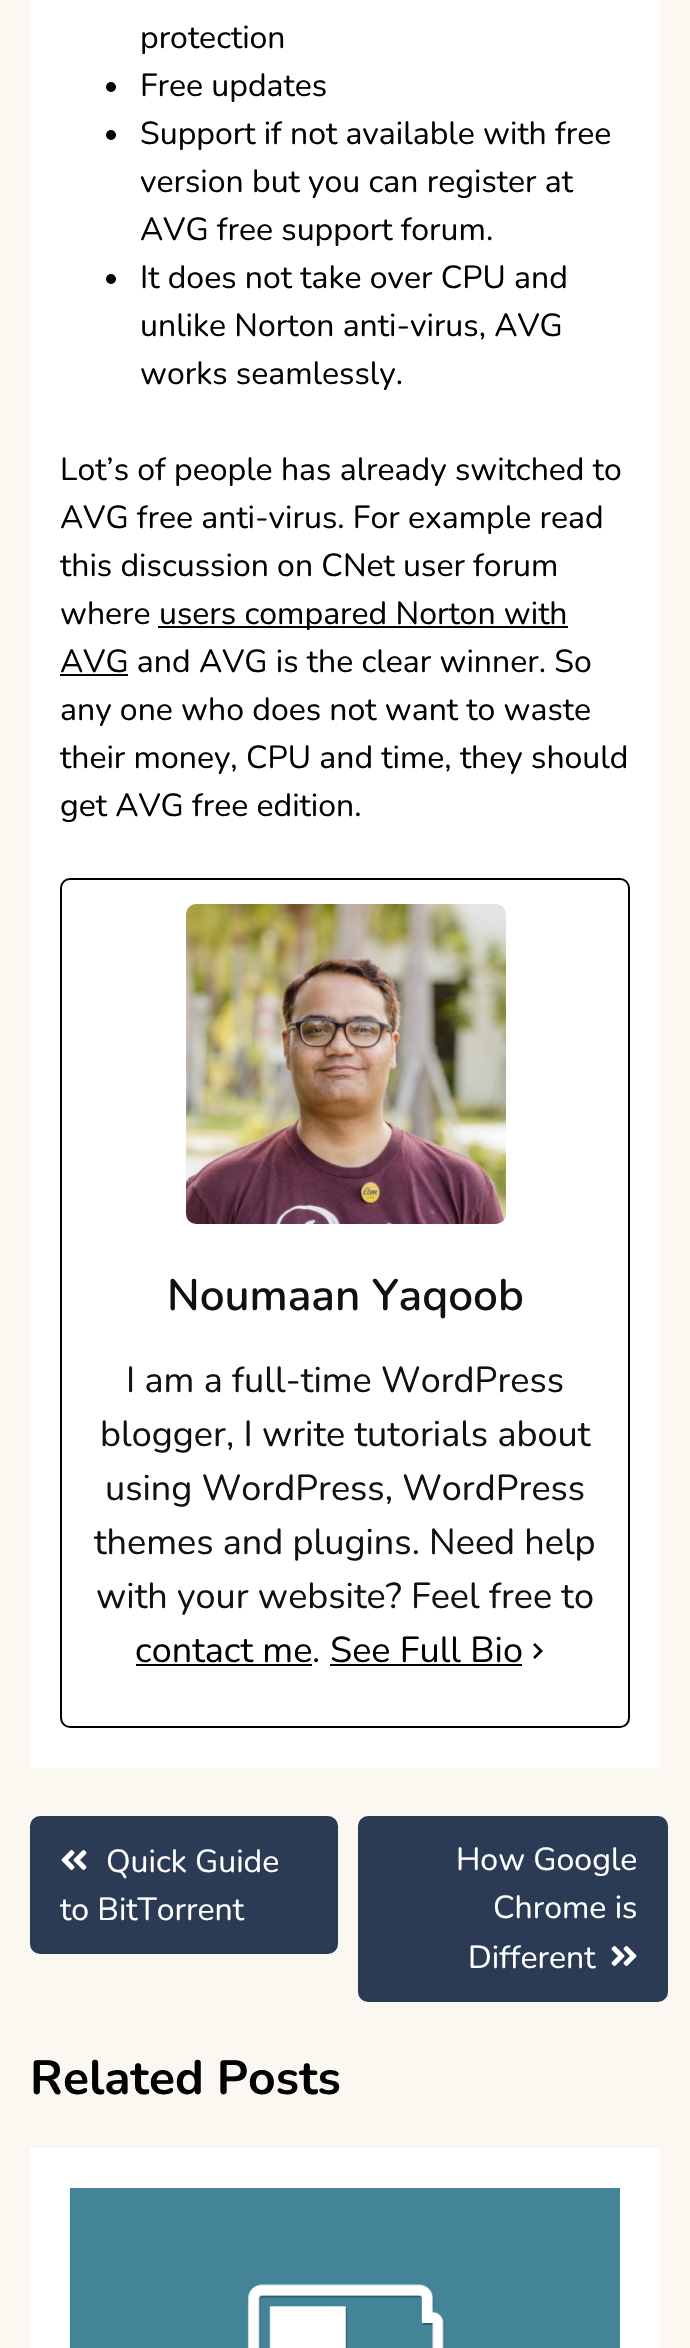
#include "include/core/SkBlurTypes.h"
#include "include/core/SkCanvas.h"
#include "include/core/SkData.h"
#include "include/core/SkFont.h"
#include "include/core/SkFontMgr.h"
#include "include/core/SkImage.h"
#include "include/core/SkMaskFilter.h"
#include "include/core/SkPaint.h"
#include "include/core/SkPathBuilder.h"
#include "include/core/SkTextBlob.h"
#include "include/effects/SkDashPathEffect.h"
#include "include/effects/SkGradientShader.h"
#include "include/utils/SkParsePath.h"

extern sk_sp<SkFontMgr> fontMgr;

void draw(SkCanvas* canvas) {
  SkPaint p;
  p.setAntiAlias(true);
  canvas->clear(SkColorSetRGB(251, 248, 241));
  p.setColor(SK_ColorWHITE);
  canvas->drawRect(SkRect::MakeLTRB(30, 0, 660, 1768), p);
  p.setColor(SkColorSetRGB(2, 2, 2));
  canvas->drawCircle(111, 87, 5, p);
  canvas->drawCircle(111, 135, 5, p);
  canvas->drawCircle(111, 279, 5, p);
  canvas->drawRect(SkRect::MakeLTRB(158, 626, 568, 628), p);
  canvas->drawRect(SkRect::MakeLTRB(60, 674, 128, 676), p);
  p.setStyle(SkPaint::kStroke_Style);
  p.setStrokeWidth(2);
  p.setColor(SK_ColorBLACK);
  canvas->drawRoundRect(SkRect::MakeLTRB(61, 879, 629, 1727), 9, 9, p);
  canvas->drawImageRect(SkImages::DeferredFromEncodedData(SkData::MakeFromFileName("images/1.png")), SkRect::MakeLTRB(186, 904, 506, 1224), SkSamplingOptions());
  p.setStyle(SkPaint::kFill_Style);
  p.setColor(SkColorSetRGB(2, 2, 2));
  canvas->drawRect(SkRect::MakeLTRB(136, 1664, 312, 1666), p);
  canvas->drawRect(SkRect::MakeLTRB(330, 1664, 522, 1666), p);
  canvas->drawImageRect(SkImages::DeferredFromEncodedData(SkData::MakeFromFileName("images/2.png")), SkRect::MakeLTRB(533, 1643, 543, 1659), SkSamplingOptions());
  p.setColor(SkColorSetRGB(43, 58, 85));
  canvas->drawRoundRect(SkRect::MakeLTRB(30, 1816, 338, 1954), 10, 10, p);
  canvas->drawImageRect(SkImages::DeferredFromEncodedData(SkData::MakeFromFileName("images/3.png")), SkRect::MakeLTRB(61, 1850, 87, 1870), SkSamplingOptions());
  canvas->drawRoundRect(SkRect::MakeLTRB(358, 1816, 668, 2002), 10, 10, p);
  canvas->drawImageRect(SkImages::DeferredFromEncodedData(SkData::MakeFromFileName("images/4.png")), SkRect::MakeLTRB(611, 1946, 637, 1966), SkSamplingOptions());
  p.setColor(SK_ColorWHITE);
  canvas->drawRect(SkRect::MakeLTRB(30, 2148, 660, 2348), p);
  canvas->drawImageRect(SkImages::DeferredFromEncodedData(SkData::MakeFromFileName("images/5.png")), SkRect::MakeLTRB(70, 2188, 620, 2348), SkSamplingOptions());
  SkFont font1(fontMgr->matchFamilyStyle("Nunito", SkFontStyle::Normal()), 32);
  font1.setSubpixel(true);
  p.setColor(SkColorSetRGB(2, 2, 2));
  canvas->drawString("protection", 140, 48, font1, p);
  canvas->drawString("Free updates", 140, 96, font1, p);
  canvas->drawString("Support if not available with free", 140, 144, font1, p);
  canvas->drawString("version but you can register at", 140, 192, font1, p);
  canvas->drawString("AVG free support forum.", 140, 240, font1, p);
  canvas->drawString("It does not take over CPU and", 140, 288, font1, p);
  canvas->drawString("unlike Norton anti-virus, AVG", 140, 336, font1, p);
  canvas->drawString("works seamlessly.", 140, 384, font1, p);
  canvas->drawString("Lot’s of people has already switched to", 60, 480, font1, p);
  canvas->drawString("AVG free anti-virus. For example read", 60, 528, font1, p);
  canvas->drawString("this discussion on CNet user forum", 60, 576, font1, p);
  canvas->drawString("where", 60, 624, font1, p);
  canvas->drawString("users compared Norton with", 159, 624, font1, p);
  canvas->drawString("AVG and AVG is the clear winner. So", 60, 672, font1, p);
  canvas->drawString("any one who does not want to waste", 60, 720, font1, p);
  canvas->drawString("their money, CPU and time, they should", 60, 768, font1, p);
  canvas->drawString("get AVG free edition.", 60, 816, font1, p);
  SkFont font2(fontMgr->matchFamilyStyle("Nunito", SkFontStyle(600, SkFontStyle::kNormal_Width, SkFontStyle::kUpright_Slant)), 44);
  font2.setSubpixel(true);
  p.setColor(SkColorSetRGB(17, 17, 17));
  canvas->drawString("Noumaan Yaqoob", 167, 1310, font2, p);
  SkFont font3(fontMgr->matchFamilyStyle("Nunito", SkFontStyle::Normal()), 36);
  font3.setSubpixel(true);
  canvas->drawString("I am a full-time WordPress", 126, 1392, font3, p);
  canvas->drawString("blogger, I write tutorials about", 100, 1446, font3, p);
  canvas->drawString("using WordPress, WordPress", 105, 1500, font3, p);
  canvas->drawString("themes and plugins. Need help", 94, 1554, font3, p);
  canvas->drawString("with your website? Feel free to", 96, 1608, font3, p);
  p.setColor(SkColorSetRGB(2, 2, 2));
  canvas->drawString("contact me", 135, 1662, font3, p);
  p.setColor(SkColorSetRGB(17, 17, 17));
  canvas->drawString(".", 312, 1662, font3, p);
  p.setColor(SkColorSetRGB(2, 2, 2));
  canvas->drawString("See Full Bio", 330, 1662, font3, p);
  p.setColor(SK_ColorWHITE);
  canvas->drawString("Quick Guide", 106, 1872, font1, p);
  canvas->drawString("to BitTorrent", 60, 1920, font1, p);
  canvas->drawString("How Google", 456, 1870, font1, p);
  canvas->drawString("Chrome is", 493, 1918, font1, p);
  canvas->drawString("Different", 468, 1968, font1, p);
  SkFont font4(fontMgr->matchFamilyStyle("Nunito", SkFontStyle::Bold()), 48);
  font4.setSubpixel(true);
  p.setColor(SkColorSetRGB(2, 2, 2));
  canvas->drawString("Related Posts", 30, 2094, font4, p);
}
